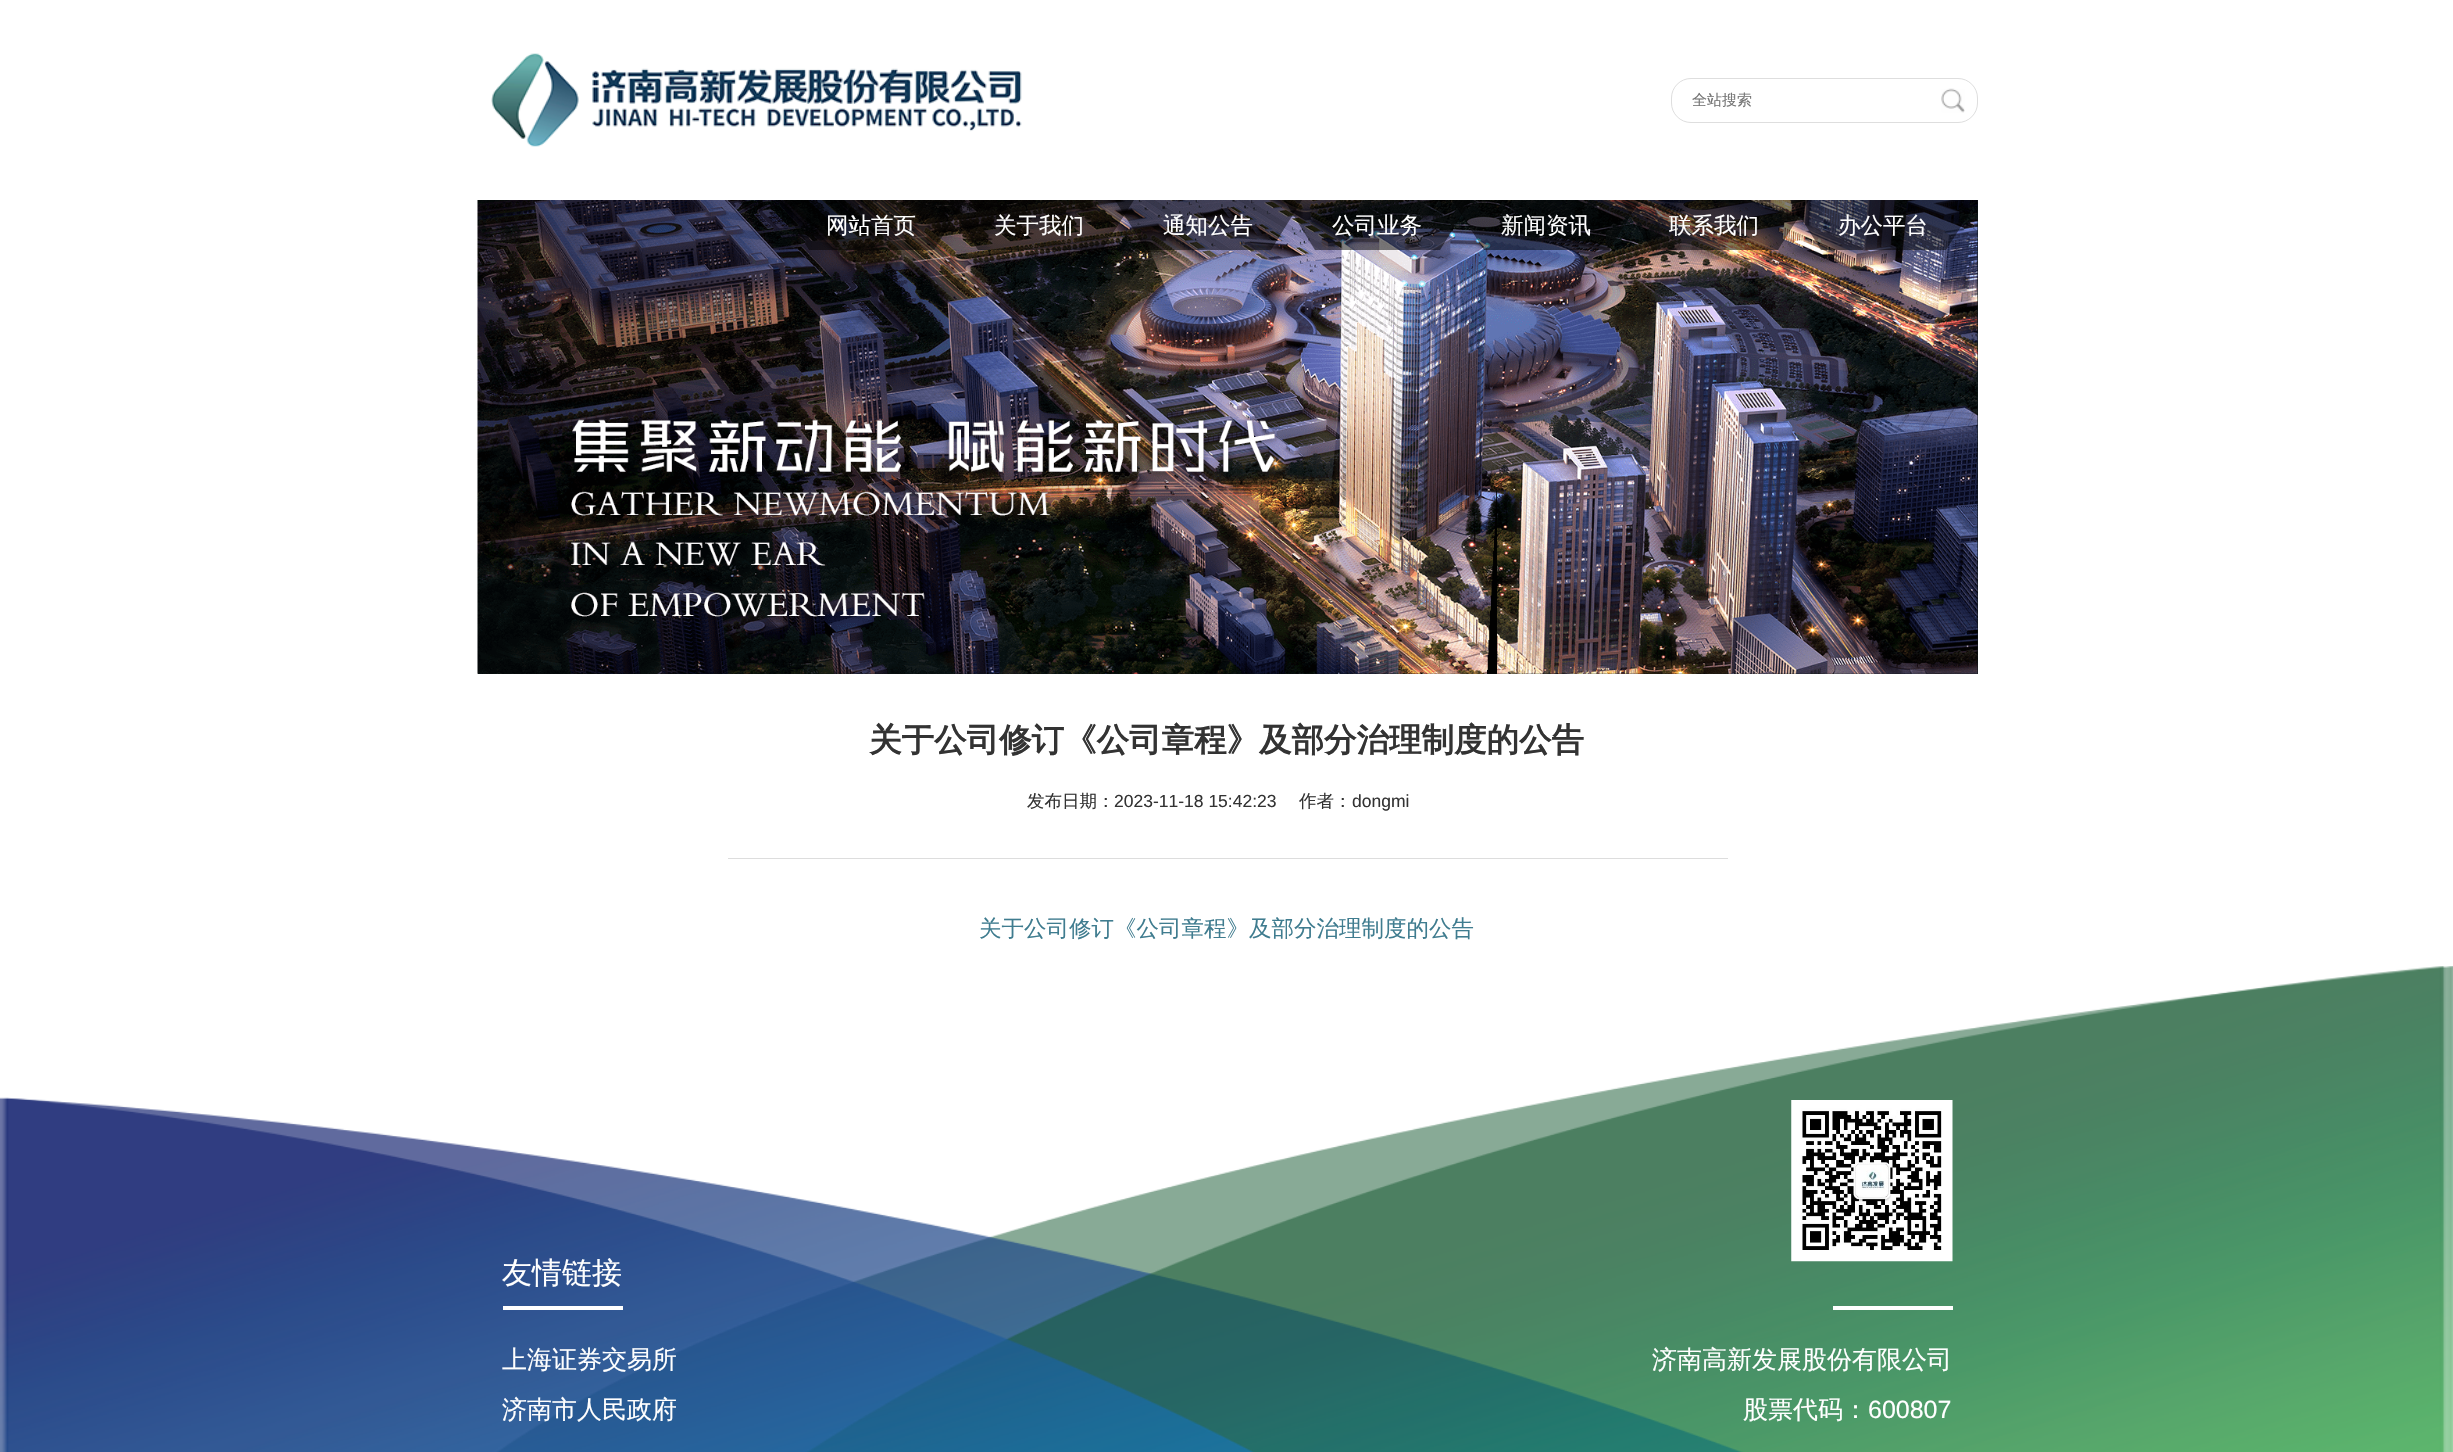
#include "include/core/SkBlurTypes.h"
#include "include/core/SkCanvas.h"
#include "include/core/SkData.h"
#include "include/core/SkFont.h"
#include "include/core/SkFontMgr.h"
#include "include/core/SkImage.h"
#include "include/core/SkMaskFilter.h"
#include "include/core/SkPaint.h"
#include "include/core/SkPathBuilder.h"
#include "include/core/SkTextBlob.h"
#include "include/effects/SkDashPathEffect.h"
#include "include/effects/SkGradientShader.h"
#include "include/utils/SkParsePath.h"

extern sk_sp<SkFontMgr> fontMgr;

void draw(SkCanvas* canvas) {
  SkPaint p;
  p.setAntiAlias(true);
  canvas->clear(SK_ColorWHITE);
  canvas->drawImageRect(SkImages::DeferredFromEncodedData(SkData::MakeFromFileName("images/1.png")), SkRect::MakeLTRB(491, 53, 1022, 147), SkSamplingOptions());
  canvas->drawImageRect(SkImages::DeferredFromEncodedData(SkData::MakeFromFileName("images/2.png")), SkRect::MakeLTRB(1941, 88, 1965, 113), SkSamplingOptions());
  p.setStyle(SkPaint::kStroke_Style);
  p.setStrokeWidth(1);
  p.setColor(SkColorSetRGB(222, 222, 222));
  canvas->drawRoundRect(SkRect::MakeLTRB(1671.5f, 78.5f, 1977.5f, 122.5f), 19.5f, 19.5f, p);
  p.setStyle(SkPaint::kFill_Style);
  p.setColor(SkColorSetRGB(10, 20, 20));
  canvas->drawRect(SkRect::MakeLTRB(478, 200, 1978, 674), p);
  canvas->drawImageRect(SkImages::DeferredFromEncodedData(SkData::MakeFromFileName("images/3.png")), SkRect::MakeLTRB(477, 200, 1978, 674), SkSamplingOptions());
  p.setColor(SkColorSetARGB(128, 0, 0, 0));
  canvas->drawPath(SkPathBuilder().moveTo(778, 200).lineTo(965, 200).lineTo(934, 250).lineTo(809, 250).close().detach(), p);
  canvas->drawPath(SkPathBuilder().moveTo(946, 200).lineTo(1134, 200).lineTo(1102, 250).lineTo(978, 250).close().detach(), p);
  canvas->drawPath(SkPathBuilder().moveTo(1115, 200).lineTo(1302, 200).lineTo(1271, 250).lineTo(1146, 250).close().detach(), p);
  canvas->drawPath(SkPathBuilder().moveTo(1284, 200).lineTo(1471, 200).lineTo(1440, 250).lineTo(1315, 250).close().detach(), p);
  canvas->drawPath(SkPathBuilder().moveTo(1452, 200).lineTo(1640, 200).lineTo(1609, 250).lineTo(1484, 250).close().detach(), p);
  canvas->drawPath(SkPathBuilder().moveTo(1621, 200).lineTo(1809, 200).lineTo(1778, 250).lineTo(1652, 250).close().detach(), p);
  canvas->drawPath(SkPathBuilder().moveTo(1790, 200).lineTo(1978, 200).lineTo(1946, 250).lineTo(1821, 250).close().detach(), p);
  p.setColor(SkColorSetRGB(221, 221, 221));
  canvas->drawRect(SkRect::MakeLTRB(728, 858, 1728, 859), p);
  canvas->drawImageRect(SkImages::DeferredFromEncodedData(SkData::MakeFromFileName("images/4.png")), SkRect::MakeLTRB(0, 966, 2453, 1452), SkSamplingOptions());
  p.setColor(SK_ColorWHITE);
  canvas->drawRect(SkRect::MakeLTRB(503, 1306, 623, 1310), p);
  canvas->drawImageRect(SkImages::DeferredFromEncodedData(SkData::MakeFromFileName("images/5.png")), SkRect::MakeLTRB(1791, 1100, 1953, 1262), SkSamplingOptions());
  canvas->drawRect(SkRect::MakeLTRB(1833, 1306, 1953, 1310), p);
  SkFont font1(fontMgr->matchFamilyStyle("WenQuanYi Zen Hei", SkFontStyle(500, SkFontStyle::kNormal_Width, SkFontStyle::kUpright_Slant)), 15);
  font1.setSubpixel(true);
  p.setColor(SkColorSetRGB(117, 117, 117));
  canvas->drawString("全站搜索", 1692, 105, font1, p);
  SkFont font2(fontMgr->matchFamilyStyle("WenQuanYi Zen Hei", SkFontStyle(500, SkFontStyle::kNormal_Width, SkFontStyle::kUpright_Slant)), 22.5f);
  font2.setSubpixel(true);
  p.setColor(SK_ColorWHITE);
  canvas->drawString("网站首页", 826, 233, font2, p);
  canvas->drawString("关于我们", 994, 233, font2, p);
  canvas->drawString("通知公告", 1163, 233, font2, p);
  canvas->drawString("公司业务", 1332, 233, font2, p);
  canvas->drawString("新闻资讯", 1501, 233, font2, p);
  canvas->drawString("联系我们", 1669, 233, font2, p);
  canvas->drawString("办公平台", 1838, 233, font2, p);
  SkFont font3(fontMgr->matchFamilyStyle("WenQuanYi Zen Hei", SkFontStyle::Bold()), 32.5f);
  font3.setSubpixel(true);
  p.setColor(SkColorSetRGB(51, 51, 51));
  canvas->drawString("关于公司修订《公司章程》及部分治理制度的公告", 869, 751, font3, p);
  SkFont font4(fontMgr->matchFamilyStyle("WenQuanYi Zen Hei", SkFontStyle(500, SkFontStyle::kNormal_Width, SkFontStyle::kUpright_Slant)), 17.5f);
  font4.setSubpixel(true);
  canvas->drawString("发布日期：", 1027, 807, font4, p);
  SkFont font5(fontMgr->matchFamilyStyle("Liberation Sans", SkFontStyle::Normal()), 17.5f);
  font5.setSubpixel(true);
  canvas->drawString("2023-11-18 15:42:23", 1114, 807, font5, p);
  canvas->drawString("作者：", 1299, 807, font4, p);
  canvas->drawString("dongmi", 1352, 807, font5, p);
  p.setColor(SkColorSetRGB(63, 124, 143));
  canvas->drawString("关于公司修订《公司章程》及部分治理制度的公告", 979, 936, font2, p);
  SkFont font6(fontMgr->matchFamilyStyle("WenQuanYi Zen Hei", SkFontStyle(500, SkFontStyle::kNormal_Width, SkFontStyle::kUpright_Slant)), 30);
  font6.setSubpixel(true);
  p.setColor(SK_ColorWHITE);
  canvas->drawString("友情链接", 502, 1283, font6, p);
  SkFont font7(fontMgr->matchFamilyStyle("WenQuanYi Zen Hei", SkFontStyle(500, SkFontStyle::kNormal_Width, SkFontStyle::kUpright_Slant)), 25);
  font7.setSubpixel(true);
  canvas->drawString("上海证券交易所", 502, 1368, font7, p);
  canvas->drawString("济南市人民政府", 502, 1418, font7, p);
  canvas->drawString("济南高新发展股份有限公司", 1652, 1368, font7, p);
  canvas->drawString("股票代码：", 1743, 1418, font7, p);
  SkFont font8(fontMgr->matchFamilyStyle("Liberation Sans", SkFontStyle::Normal()), 25);
  font8.setSubpixel(true);
  canvas->drawString("600807", 1868, 1418, font8, p);
}
